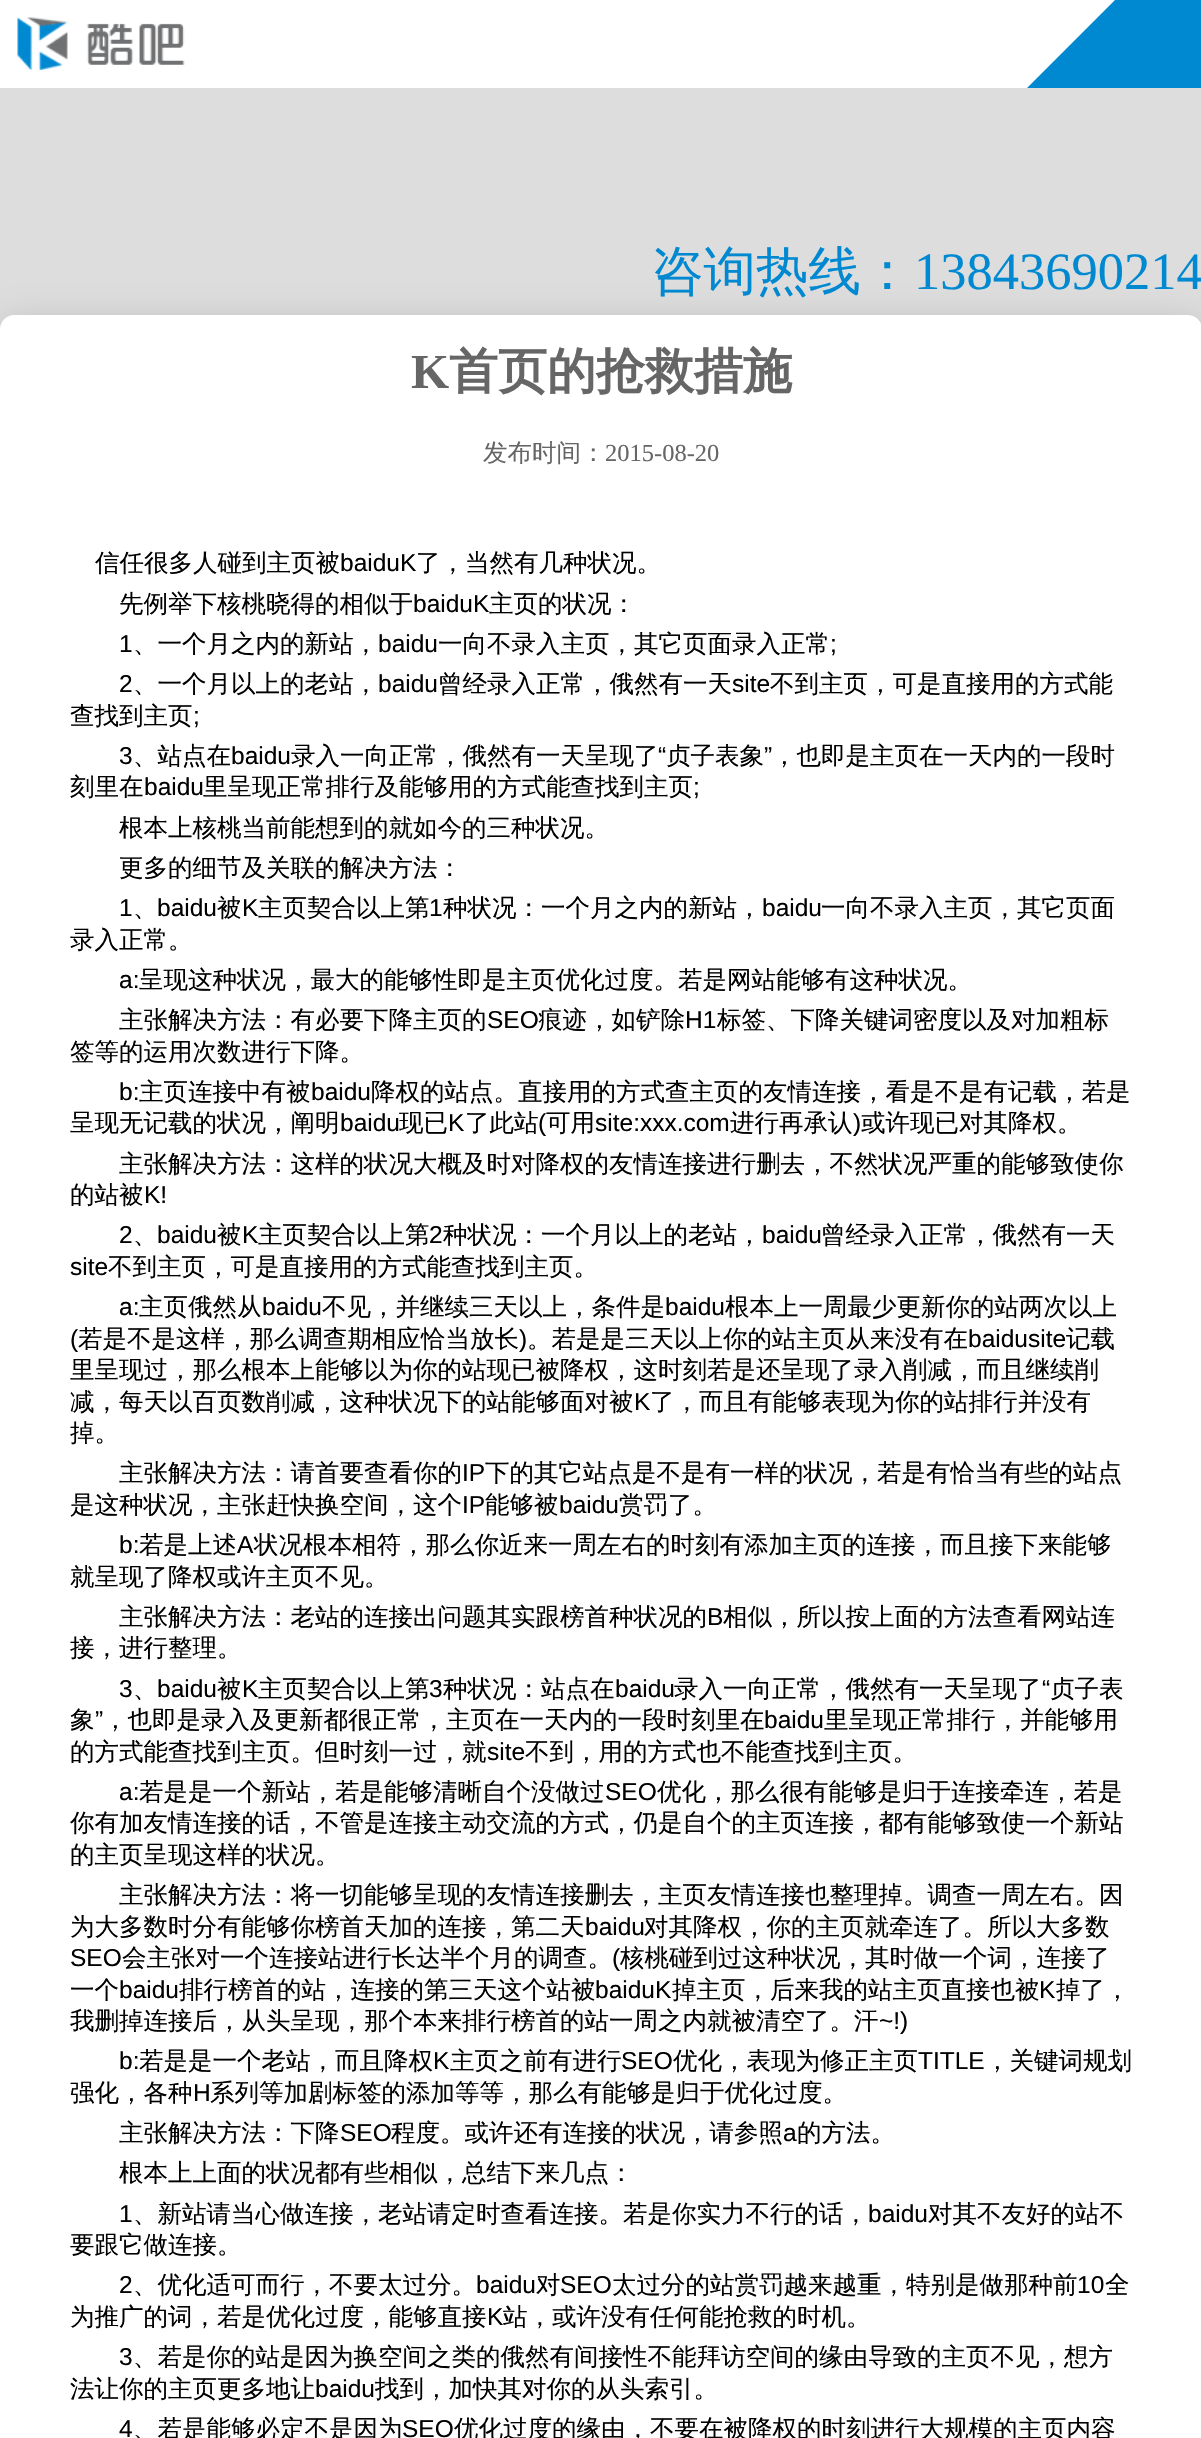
#include "include/core/SkBlurTypes.h"
#include "include/core/SkCanvas.h"
#include "include/core/SkData.h"
#include "include/core/SkFont.h"
#include "include/core/SkFontMgr.h"
#include "include/core/SkImage.h"
#include "include/core/SkMaskFilter.h"
#include "include/core/SkPaint.h"
#include "include/core/SkPathBuilder.h"
#include "include/core/SkTextBlob.h"
#include "include/effects/SkDashPathEffect.h"
#include "include/effects/SkGradientShader.h"
#include "include/utils/SkParsePath.h"

extern sk_sp<SkFontMgr> fontMgr;

void draw(SkCanvas* canvas) {
  SkPaint p;
  p.setAntiAlias(true);
  canvas->clear(SkColorSetRGB(221, 221, 221));
  p.setColor(SK_ColorWHITE);
  canvas->drawRect(SkRect::MakeLTRB(0, 0, 1027, 88), p);
  canvas->drawImageRect(SkImages::DeferredFromEncodedData(SkData::MakeFromFileName("images/1.png")), SkRect::MakeLTRB(17, 17, 185, 70), SkSamplingOptions());
  p.setColor(SkColorSetRGB(0, 137, 209));
  canvas->drawRect(SkRect::MakeLTRB(1027, 0, 1201, 88), p);
  p.setColor(SK_ColorWHITE);
  canvas->drawPath(SkPathBuilder().moveTo(1027, 88).lineTo(1027, 0).lineTo(1115, 0).close().detach(), p);
  p.setColor(SkColorSetRGB(187, 187, 187));
  p.setMaskFilter(SkMaskFilter::MakeBlur(kNormal_SkBlurStyle, 17.5f));
  canvas->drawRoundRect(SkRect::MakeLTRB(0, 322, 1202, 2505), 14, 14, p);
  p.setMaskFilter(nullptr);
  p.setColor(SK_ColorWHITE);
  canvas->drawPath(SkPathBuilder().moveTo(14, 315).lineTo(1188, 315).cubicTo(1195.5f, 315, 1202, 321.5f, 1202, 329).lineTo(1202, 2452).lineTo(0, 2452).lineTo(0, 329).cubicTo(0, 321.5f, 6.5f, 315, 14, 315).close().detach(), p);
  SkFont font1(fontMgr->matchFamilyStyle("WenQuanYi Zen Hei", SkFontStyle(500, SkFontStyle::kNormal_Width, SkFontStyle::kUpright_Slant)), 52.5f);
  font1.setSubpixel(true);
  p.setColor(SkColorSetRGB(0, 137, 209));
  canvas->drawString("咨询热线：", 651, 289, font1, p);
  SkFont font2(fontMgr->matchFamilyStyle("Liberation Serif", SkFontStyle::Normal()), 52.5f);
  font2.setSubpixel(true);
  canvas->drawString("13843690214", 914, 289, font2, p);
  SkFont font3(fontMgr->matchFamilyStyle("Liberation Serif", SkFontStyle::Bold()), 49);
  font3.setSubpixel(true);
  p.setColor(SkColorSetRGB(102, 102, 102));
  canvas->drawString("K", 411, 388, font3, p);
  SkFont font4(fontMgr->matchFamilyStyle("WenQuanYi Zen Hei", SkFontStyle::Bold()), 49);
  font4.setSubpixel(true);
  canvas->drawString("首页的抢救措施", 449, 388, font4, p);
  SkFont font5(fontMgr->matchFamilyStyle("WenQuanYi Zen Hei", SkFontStyle(500, SkFontStyle::kNormal_Width, SkFontStyle::kUpright_Slant)), 24.5f);
  font5.setSubpixel(true);
  canvas->drawString("发布时间：", 483, 461, font5, p);
  SkFont font6(fontMgr->matchFamilyStyle("Liberation Serif", SkFontStyle::Normal()), 24.5f);
  font6.setSubpixel(true);
  canvas->drawString("2015-08-20", 605, 461, font6, p);
  p.setColor(SK_ColorBLACK);
  canvas->drawString("信任很多人碰到主页被", 95, 571, font5, p);
  SkFont font7(fontMgr->matchFamilyStyle("Liberation Sans", SkFontStyle::Normal()), 24.5f);
  font7.setSubpixel(true);
  canvas->drawString("baiduK", 340, 571, font7, p);
  canvas->drawString("了，当然有几种状况。", 416, 571, font5, p);
  canvas->drawString("先例举下核桃晓得的相似于", 119, 612, font5, p);
  canvas->drawString("baiduK", 413, 612, font7, p);
  canvas->drawString("主页的状况：", 489, 612, font5, p);
  canvas->drawString("1", 119, 652, font7, p);
  canvas->drawString("、一个月之内的新站，", 133, 652, font5, p);
  canvas->drawString("baidu", 378, 652, font7, p);
  canvas->drawString("一向不录入主页，其它页面录入正常", 438, 652, font5, p);
  canvas->drawString(";", 830, 652, font7, p);
  canvas->drawString("2", 119, 692, font7, p);
  canvas->drawString("、一个月以上的老站，", 133, 692, font5, p);
  canvas->drawString("baidu", 378, 692, font7, p);
  canvas->drawString("曾经录入正常，俄然有一天", 438, 692, font5, p);
  canvas->drawString("site", 732, 692, font7, p);
  canvas->drawString("不到主页，可是直接用的方式能", 770, 692, font5, p);
  canvas->drawString("查找到主页", 70, 724, font5, p);
  canvas->drawString(";", 193, 724, font7, p);
  canvas->drawString("3", 119, 764, font7, p);
  canvas->drawString("、站点在", 133, 764, font5, p);
  canvas->drawString("baidu", 231, 764, font7, p);
  canvas->drawString("录入一向正常，俄然有一天呈现了", 291, 764, font5, p);
  canvas->drawString("“", 658, 764, font7, p);
  canvas->drawString("贞子表象", 666, 764, font5, p);
  canvas->drawString("”", 764, 764, font7, p);
  canvas->drawString("，也即是主页在一天内的一段时", 772, 764, font5, p);
  canvas->drawString("刻里在", 70, 795, font5, p);
  canvas->drawString("baidu", 144, 795, font7, p);
  canvas->drawString("里呈现正常排行及能够用的方式能查找到主页", 203, 795, font5, p);
  canvas->drawString(";", 693, 795, font7, p);
  canvas->drawString("根本上核桃当前能想到的就如今的三种状况。", 119, 836, font5, p);
  canvas->drawString("更多的细节及关联的解决方法：", 119, 876, font5, p);
  canvas->drawString("1", 119, 916, font7, p);
  canvas->drawString("baidu", 157, 916, font7, p);
  canvas->drawString("被", 217, 916, font5, p);
  canvas->drawString("K", 242, 916, font7, p);
  canvas->drawString("主页契合以上第", 258, 916, font5, p);
  canvas->drawString("1", 429, 916, font7, p);
  canvas->drawString("种状况：一个月之内的新站，", 443, 916, font5, p);
  canvas->drawString("baidu", 762, 916, font7, p);
  canvas->drawString("一向不录入主页，其它页面", 821, 916, font5, p);
  canvas->drawString("、", 133, 916, font5, p);
  canvas->drawString("录入正常。", 70, 948, font5, p);
  canvas->drawString("a:", 119, 988, font7, p);
  canvas->drawString("呈现这种状况，最大的能够性即是主页优化过度。若是网站能够有这种状况。", 139, 988, font5, p);
  canvas->drawString("主张解决方法：有必要下降主页的", 119, 1028, font5, p);
  canvas->drawString("SEO", 487, 1028, font7, p);
  canvas->drawString("痕迹，如铲除", 538, 1028, font5, p);
  canvas->drawString("H1", 685, 1028, font7, p);
  canvas->drawString("标签、下降关键词密度以及对加粗标", 717, 1028, font5, p);
  canvas->drawString("签等的运用次数进行下降。", 70, 1060, font5, p);
  canvas->drawString("b:", 119, 1100, font7, p);
  canvas->drawString("主页连接中有被", 139, 1100, font5, p);
  canvas->drawString("baidu", 311, 1100, font7, p);
  canvas->drawString("降权的站点。直接用的方式查主页的友情连接，看是不是有记载，若是", 371, 1100, font5, p);
  canvas->drawString("呈现无记载的状况，阐明", 70, 1131, font5, p);
  canvas->drawString("baidu", 340, 1131, font7, p);
  canvas->drawString("现已", 399, 1131, font5, p);
  canvas->drawString("K", 448, 1131, font7, p);
  canvas->drawString("了此站", 465, 1131, font5, p);
  canvas->drawString("(", 538, 1131, font7, p);
  canvas->drawString("可用", 546, 1131, font5, p);
  canvas->drawString("site:xxx.com", 595, 1131, font7, p);
  canvas->drawString("进行再承认", 730, 1131, font5, p);
  canvas->drawString(")", 853, 1131, font7, p);
  canvas->drawString("或许现已对其降权。", 861, 1131, font5, p);
  canvas->drawString("主张解决方法：这样的状况大概及时对降权的友情连接进行删去，不然状况严重的能够致使你", 119, 1172, font5, p);
  canvas->drawString("的站被", 70, 1203, font5, p);
  canvas->drawString("K!", 144, 1203, font7, p);
  canvas->drawString("2", 119, 1243, font7, p);
  canvas->drawString("baidu", 157, 1243, font7, p);
  canvas->drawString("被", 217, 1243, font5, p);
  canvas->drawString("K", 242, 1243, font7, p);
  canvas->drawString("主页契合以上第", 258, 1243, font5, p);
  canvas->drawString("2", 429, 1243, font7, p);
  canvas->drawString("种状况：一个月以上的老站，", 443, 1243, font5, p);
  canvas->drawString("baidu", 762, 1243, font7, p);
  canvas->drawString("曾经录入正常，俄然有一天", 821, 1243, font5, p);
  canvas->drawString("、", 133, 1243, font5, p);
  canvas->drawString("site", 70, 1275, font7, p);
  canvas->drawString("不到主页，可是直接用的方式能查找到主页。", 108, 1275, font5, p);
  canvas->drawString("a:", 119, 1315, font7, p);
  canvas->drawString("主页俄然从", 139, 1315, font5, p);
  canvas->drawString("baidu", 262, 1315, font7, p);
  canvas->drawString("不见，并继续三天以上，条件是", 322, 1315, font5, p);
  canvas->drawString("baidu", 665, 1315, font7, p);
  canvas->drawString("根本上一周最少更新你的站两次以上", 725, 1315, font5, p);
  canvas->drawString("(", 70, 1347, font7, p);
  canvas->drawString("若是不是这样，那么调查期相应恰当放长", 78, 1347, font5, p);
  canvas->drawString(")", 519, 1347, font7, p);
  canvas->drawString("。若是是三天以上你的站主页从来没有在", 527, 1347, font5, p);
  canvas->drawString("baidusite", 968, 1347, font7, p);
  canvas->drawString("记载", 1066, 1347, font5, p);
  canvas->drawString("里呈现过，那么根本上能够以为你的站现已被降权，这时刻若是还呈现了录入削减，而且继续削", 70, 1378, font5, p);
  canvas->drawString("减，每天以百页数削减，这种状况下的站能够面对被", 70, 1410, font5, p);
  canvas->drawString("K", 634, 1410, font7, p);
  canvas->drawString("了，而且有能够表现为你的站排行并没有", 650, 1410, font5, p);
  canvas->drawString("掉。", 70, 1441, font5, p);
  canvas->drawString("主张解决方法：请首要查看你的", 119, 1481, font5, p);
  canvas->drawString("IP", 462, 1481, font7, p);
  canvas->drawString("下的其它站点是不是有一样的状况，若是有恰当有些的站点", 485, 1481, font5, p);
  canvas->drawString("是这种状况，主张赶快换空间，这个", 70, 1513, font5, p);
  canvas->drawString("IP", 462, 1513, font7, p);
  canvas->drawString("能够被", 485, 1513, font5, p);
  canvas->drawString("baidu", 559, 1513, font7, p);
  canvas->drawString("赏罚了。", 619, 1513, font5, p);
  canvas->drawString("b:", 119, 1553, font7, p);
  canvas->drawString("若是上述", 139, 1553, font5, p);
  canvas->drawString("A", 237, 1553, font7, p);
  canvas->drawString("状况根本相符，那么你近来一周左右的时刻有添加主页的连接，而且接下来能够", 254, 1553, font5, p);
  canvas->drawString("就呈现了降权或许主页不见。", 70, 1585, font5, p);
  canvas->drawString("主张解决方法：老站的连接出问题其实跟榜首种状况的", 119, 1625, font5, p);
  canvas->drawString("B", 707, 1625, font7, p);
  canvas->drawString("相似，所以按上面的方法查看网站连", 723, 1625, font5, p);
  canvas->drawString("接，进行整理。", 70, 1656, font5, p);
  canvas->drawString("3", 119, 1697, font7, p);
  canvas->drawString("baidu", 157, 1697, font7, p);
  canvas->drawString("被", 217, 1697, font5, p);
  canvas->drawString("K", 242, 1697, font7, p);
  canvas->drawString("主页契合以上第", 258, 1697, font5, p);
  canvas->drawString("3", 429, 1697, font7, p);
  canvas->drawString("种状况：站点在", 443, 1697, font5, p);
  canvas->drawString("baidu", 615, 1697, font7, p);
  canvas->drawString("录入一向正常，俄然有一天呈现了", 674, 1697, font5, p);
  canvas->drawString("“", 1042, 1697, font7, p);
  canvas->drawString("贞子表", 1050, 1697, font5, p);
  canvas->drawString("、", 133, 1697, font5, p);
  canvas->drawString("象", 70, 1728, font5, p);
  canvas->drawString("”", 95, 1728, font7, p);
  canvas->drawString("，也即是录入及更新都很正常，主页在一天内的一段时刻里在", 103, 1728, font5, p);
  canvas->drawString("baidu", 764, 1728, font7, p);
  canvas->drawString("里呈现正常排行，并能够用", 824, 1728, font5, p);
  canvas->drawString("的方式能查找到主页。但时刻一过，就", 70, 1760, font5, p);
  canvas->drawString("site", 487, 1760, font7, p);
  canvas->drawString("不到，用的方式也不能查找到主页。", 525, 1760, font5, p);
  canvas->drawString("a:", 119, 1800, font7, p);
  canvas->drawString("若是是一个新站，若是能够清晰自个没做过", 139, 1800, font5, p);
  canvas->drawString("SEO", 605, 1800, font7, p);
  canvas->drawString("优化，那么很有能够是归于连接牵连，若是", 657, 1800, font5, p);
  canvas->drawString("你有加友情连接的话，不管是连接主动交流的方式，仍是自个的主页连接，都有能够致使一个新站", 70, 1831, font5, p);
  canvas->drawString("的主页呈现这样的状况。", 70, 1863, font5, p);
  canvas->drawString("主张解决方法：将一切能够呈现的友情连接删去，主页友情连接也整理掉。调查一周左右。因", 119, 1903, font5, p);
  canvas->drawString("为大多数时分有能够你榜首天加的连接，第二天", 70, 1935, font5, p);
  canvas->drawString("baidu", 585, 1935, font7, p);
  canvas->drawString("对其降权，你的主页就牵连了。所以大多数", 644, 1935, font5, p);
  canvas->drawString("SEO", 70, 1966, font7, p);
  canvas->drawString("会主张对一个连接站进行长达半个月的调查。", 122, 1966, font5, p);
  canvas->drawString("(", 612, 1966, font7, p);
  canvas->drawString("核桃碰到过这种状况，其时做一个词，连接了", 620, 1966, font5, p);
  canvas->drawString("一个", 70, 1998, font5, p);
  canvas->drawString("baidu", 119, 1998, font7, p);
  canvas->drawString("排行榜首的站，连接的第三天这个站被", 179, 1998, font5, p);
  canvas->drawString("baiduK", 595, 1998, font7, p);
  canvas->drawString("掉主页，后来我的站主页直接也被", 672, 1998, font5, p);
  canvas->drawString("K", 1039, 1998, font7, p);
  canvas->drawString("掉了，", 1056, 1998, font5, p);
  canvas->drawString("我删掉连接后，从头呈现，那个本来排行榜首的站一周之内就被清空了。汗", 70, 2029, font5, p);
  canvas->drawString("~!)", 879, 2029, font7, p);
  canvas->drawString("b:", 119, 2069, font7, p);
  canvas->drawString("若是是一个老站，而且降权", 139, 2069, font5, p);
  canvas->drawString("K", 433, 2069, font7, p);
  canvas->drawString("主页之前有进行", 450, 2069, font5, p);
  canvas->drawString("SEO", 621, 2069, font7, p);
  canvas->drawString("优化，表现为修正主页", 673, 2069, font5, p);
  canvas->drawString("TITLE", 918, 2069, font7, p);
  canvas->drawString("，关键词规划", 985, 2069, font5, p);
  canvas->drawString("强化，各种", 70, 2101, font5, p);
  canvas->drawString("H", 193, 2101, font7, p);
  canvas->drawString("系列等加剧标签的添加等等，那么有能够是归于优化过度。", 210, 2101, font5, p);
  canvas->drawString("主张解决方法：下降", 119, 2141, font5, p);
  canvas->drawString("SEO", 340, 2141, font7, p);
  canvas->drawString("程度。或许还有连接的状况，请参照", 391, 2141, font5, p);
  canvas->drawString("a", 783, 2141, font7, p);
  canvas->drawString("的方法。", 797, 2141, font5, p);
  canvas->drawString("根本上上面的状况都有些相似，总结下来几点：", 119, 2181, font5, p);
  canvas->drawString("1", 119, 2222, font7, p);
  canvas->drawString("、新站请当心做连接，老站请定时查看连接。若是你实力不行的话，", 133, 2222, font5, p);
  canvas->drawString("baidu", 868, 2222, font7, p);
  canvas->drawString("对其不友好的站不", 928, 2222, font5, p);
  canvas->drawString("要跟它做连接。", 70, 2253, font5, p);
  canvas->drawString("2", 119, 2293, font7, p);
  canvas->drawString("、优化适可而行，不要太过分。", 133, 2293, font5, p);
  canvas->drawString("baidu", 476, 2293, font7, p);
  canvas->drawString("对", 536, 2293, font5, p);
  canvas->drawString("SEO", 560, 2293, font7, p);
  canvas->drawString("太过分的站赏罚越来越重，特别是做那种前", 612, 2293, font5, p);
  canvas->drawString("10", 1077, 2293, font7, p);
  canvas->drawString("全", 1105, 2293, font5, p);
  canvas->drawString("为推广的词，若是优化过度，能够直接", 70, 2325, font5, p);
  canvas->drawString("K", 487, 2325, font7, p);
  canvas->drawString("站，或许没有任何能抢救的时机。", 503, 2325, font5, p);
  canvas->drawString("3", 119, 2365, font7, p);
  canvas->drawString("、若是你的站是因为换空间之类的俄然有间接性不能拜访空间的缘由导致的主页不见，想方", 133, 2365, font5, p);
  canvas->drawString("法让你的主页更多地让", 70, 2397, font5, p);
  canvas->drawString("baidu", 315, 2397, font7, p);
  canvas->drawString("找到，加快其对你的从头索引。", 375, 2397, font5, p);
  canvas->drawString("4", 119, 2437, font7, p);
  canvas->drawString("、若是能够必定不是因为", 133, 2437, font5, p);
  canvas->drawString("SEO", 402, 2437, font7, p);
  canvas->drawString("优化过度的缘由，不要在被降权的时刻进行大规模的主页内容", 454, 2437, font5, p);
}
